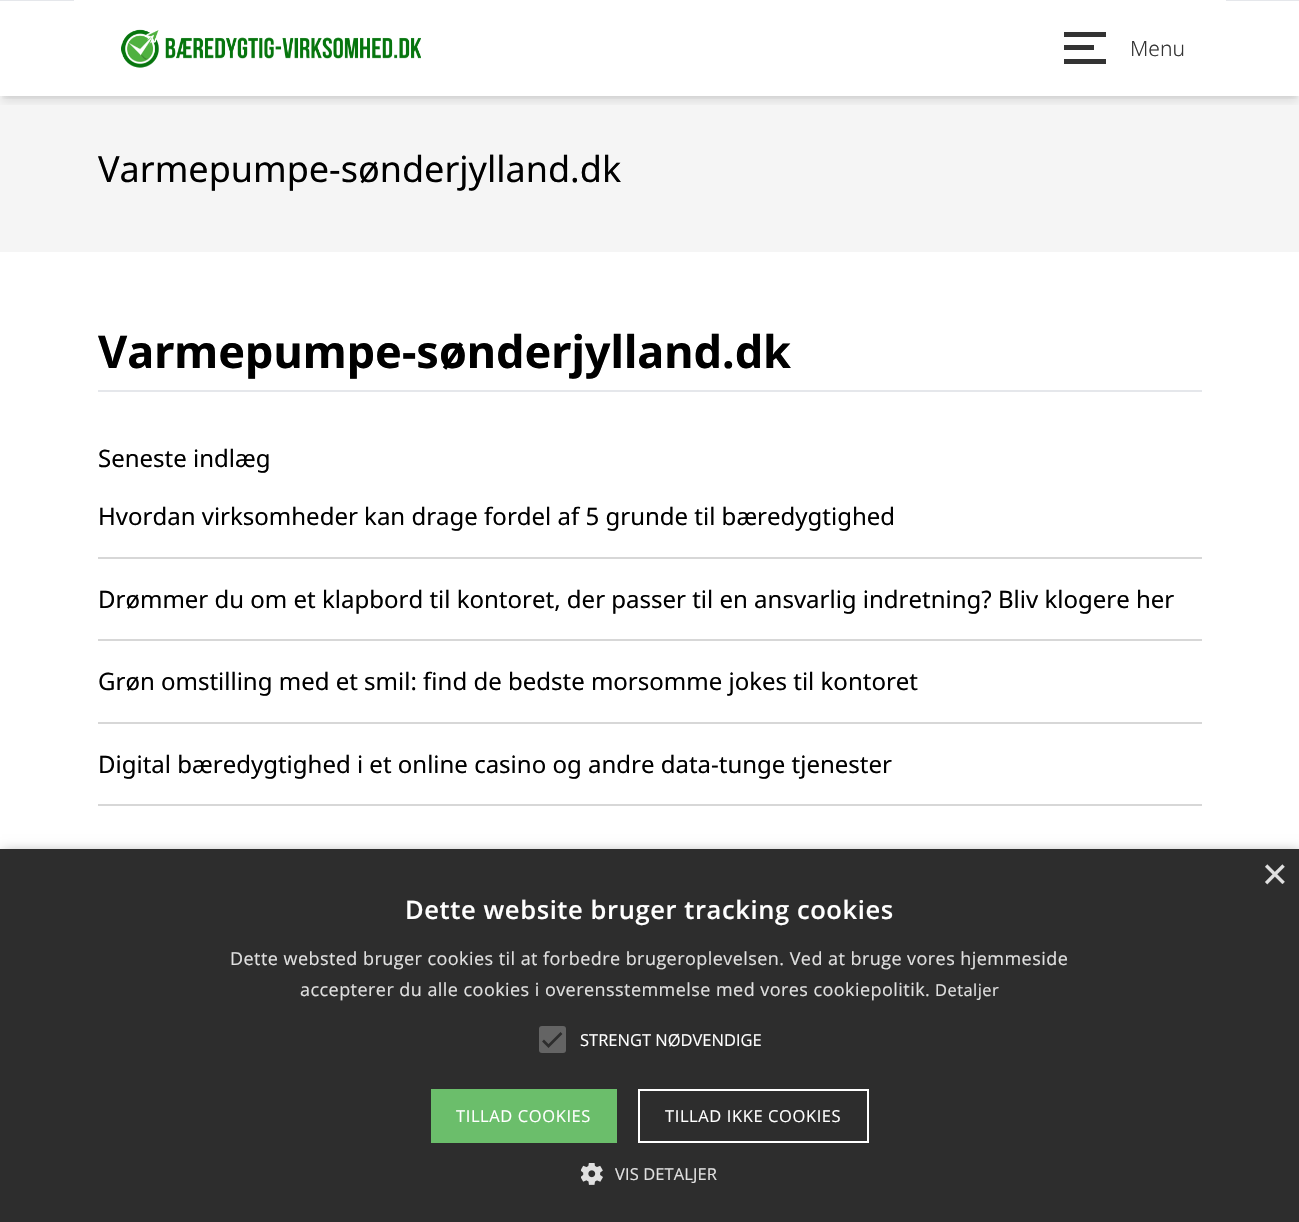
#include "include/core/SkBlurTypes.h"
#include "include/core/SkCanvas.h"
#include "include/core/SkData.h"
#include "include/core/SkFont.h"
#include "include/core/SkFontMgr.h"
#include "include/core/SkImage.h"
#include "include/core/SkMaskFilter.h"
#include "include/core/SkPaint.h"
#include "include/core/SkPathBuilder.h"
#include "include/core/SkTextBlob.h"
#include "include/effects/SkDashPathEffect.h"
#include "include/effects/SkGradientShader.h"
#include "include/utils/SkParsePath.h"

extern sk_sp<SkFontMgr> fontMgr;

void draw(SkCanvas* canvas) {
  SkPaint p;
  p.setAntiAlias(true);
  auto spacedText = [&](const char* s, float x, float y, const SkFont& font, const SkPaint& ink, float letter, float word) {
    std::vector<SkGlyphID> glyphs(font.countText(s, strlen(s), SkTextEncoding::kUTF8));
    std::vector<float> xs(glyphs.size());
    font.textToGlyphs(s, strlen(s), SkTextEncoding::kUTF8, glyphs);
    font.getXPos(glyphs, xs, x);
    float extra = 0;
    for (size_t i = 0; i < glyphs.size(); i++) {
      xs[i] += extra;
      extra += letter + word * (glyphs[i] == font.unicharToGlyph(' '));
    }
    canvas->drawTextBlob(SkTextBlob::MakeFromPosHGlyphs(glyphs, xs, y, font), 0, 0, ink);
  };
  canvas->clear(SK_ColorWHITE);
  p.setColor(SkColorSetRGB(245, 245, 245));
  canvas->drawRect(SkRect::MakeLTRB(0, 96, 1299, 252), p);
  canvas->save();
  canvas->clipRect(SkRect::MakeLTRB(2, 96, 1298, 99));
  p.setColor(SkColorSetARGB(15, 0, 0, 0));
  p.setMaskFilter(SkMaskFilter::MakeBlur(kNormal_SkBlurStyle, 3));
  canvas->drawRect(SkRect::MakeLTRB(2, 5, 1298, 98), p);
  p.setMaskFilter(nullptr);
  canvas->restore();
  canvas->save();
  canvas->clipRect(SkRect::MakeLTRB(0, 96, 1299, 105));
  p.setColor(SkColorSetARGB(26, 0, 0, 0));
  p.setMaskFilter(SkMaskFilter::MakeBlur(kNormal_SkBlurStyle, 4.5f));
  canvas->drawRect(SkRect::MakeLTRB(2, 8, 1298, 101), p);
  p.setMaskFilter(nullptr);
  canvas->restore();
  p.setColor(SkColorSetRGB(229, 231, 235));
  canvas->drawRect(SkRect::MakeLTRB(0, 0, 1299, 1), p);
  p.setColor(SK_ColorWHITE);
  canvas->drawRect(SkRect::MakeLTRB(74, 0, 1226, 1), p);
  canvas->drawImageRect(SkImages::DeferredFromEncodedData(SkData::MakeFromFileName("images/1.png")), SkRect::MakeLTRB(121, 29, 421, 68), SkSamplingOptions());
  p.setColor(SkColorSetRGB(51, 51, 51));
  canvas->drawRect(SkRect::MakeLTRB(1064, 32, 1106, 37), p);
  canvas->drawRect(SkRect::MakeLTRB(1064, 45, 1094, 50), p);
  canvas->drawRect(SkRect::MakeLTRB(1064, 59, 1106, 64), p);
  p.setColor(SkColorSetRGB(229, 231, 235));
  canvas->drawRect(SkRect::MakeLTRB(98, 390, 1202, 392), p);
  p.setColor(SkColorSetRGB(215, 215, 215));
  canvas->drawRect(SkRect::MakeLTRB(98, 557, 1202, 559), p);
  canvas->drawRect(SkRect::MakeLTRB(98, 639, 1202, 641), p);
  canvas->drawRect(SkRect::MakeLTRB(98, 722, 1202, 724), p);
  canvas->drawRect(SkRect::MakeLTRB(98, 804, 1202, 806), p);
  p.setColor(SkColorSetARGB(89, 0, 0, 0));
  p.setMaskFilter(SkMaskFilter::MakeBlur(kNormal_SkBlurStyle, 6));
  canvas->drawRect(SkRect::MakeLTRB(2, 852, 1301, 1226), p);
  p.setMaskFilter(nullptr);
  p.setColor(SkColorSetRGB(45, 45, 45));
  canvas->drawRect(SkRect::MakeLTRB(0, 849, 1299, 1222), p);
  p.setColor(SkColorSetRGB(100, 100, 100));
  canvas->drawRoundRect(SkRect::MakeLTRB(539, 1026, 566, 1053), 3, 3, p);
  p.setStyle(SkPaint::kStroke_Style);
  p.setStrokeWidth(2.7f);
  p.setColor(SkColorSetRGB(45, 45, 45));
  canvas->drawPath(SkPathBuilder().moveTo(543, 1040.5f).lineTo(548.5f, 1046).lineTo(561.5f, 1033).detach(), p);
  p.setStyle(SkPaint::kFill_Style);
  p.setColor(SkColorSetRGB(107, 190, 107));
  canvas->drawRect(SkRect::MakeLTRB(431, 1089, 617, 1143), p);
  p.setStyle(SkPaint::kStroke_Style);
  p.setStrokeWidth(2);
  p.setColor(SK_ColorWHITE);
  canvas->drawRect(SkRect::MakeLTRB(639, 1090, 868, 1142), p);
  canvas->drawImageRect(SkImages::DeferredFromEncodedData(SkData::MakeFromFileName("images/2.png")), SkRect::MakeLTRB(581, 1163, 603, 1185), SkSamplingOptions());
  SkFont font1(fontMgr->matchFamilyStyle("Noto Sans", SkFontStyle(300, SkFontStyle::kNormal_Width, SkFontStyle::kUpright_Slant)), 21);
  font1.setSubpixel(true);
  p.setStyle(SkPaint::kFill_Style);
  p.setColor(SkColorSetRGB(51, 51, 51));
  canvas->drawString("Menu", 1130, 56, font1, p);
  SkFont font2(fontMgr->matchFamilyStyle("Noto Sans", SkFontStyle::Normal()), 36);
  font2.setSubpixel(true);
  p.setColor(SK_ColorBLACK);
  canvas->drawString("Varmepumpe-sønderjylland.dk", 98, 182, font2, p);
  SkFont font3(fontMgr->matchFamilyStyle("Noto Sans", SkFontStyle::Bold()), 45);
  font3.setSubpixel(true);
  canvas->drawString("Varmepumpe-sønderjylland.dk", 98, 368, font3, p);
  SkFont font4(fontMgr->matchFamilyStyle("Noto Sans", SkFontStyle::Normal()), 24);
  font4.setSubpixel(true);
  canvas->drawString("Seneste indlæg", 98, 467, font4, p);
  canvas->drawString("Hvordan virksomheder kan drage fordel af 5 grunde til bæredygtighed", 98, 525, font4, p);
  canvas->drawString("Drømmer du om et klapbord til kontoret, der passer til en ansvarlig indretning? Bliv klogere her", 98, 608, font4, p);
  canvas->drawString("Grøn omstilling med et smil: find de bedste morsomme jokes til kontoret", 98, 690, font4, p);
  canvas->drawString("Digital bæredygtighed i et online casino og andre data-tunge tjenester", 98, 773, font4, p);
  SkFont font5(fontMgr->matchFamilyStyle("Liberation Sans", SkFontStyle::Normal()), 44);
  font5.setSubpixel(true);
  p.setColor(SkColorSetRGB(224, 224, 224));
  canvas->drawString("×", 1262, 889, font5, p);
  SkFont font6(fontMgr->matchFamilyStyle("Open Sans", SkFontStyle(600, SkFontStyle::kNormal_Width, SkFontStyle::kUpright_Slant)), 25.5f);
  font6.setSubpixel(true);
  p.setColor(SK_ColorWHITE);
  spacedText("Dette website bruger tracking cookies", 405, 919, font6, p, 0.6f, 0);
  SkFont font7(fontMgr->matchFamilyStyle("Open Sans", SkFontStyle::Normal()), 18);
  font7.setSubpixel(true);
  p.setColor(SkColorSetRGB(224, 224, 224));
  spacedText("Dette websted bruger cookies til at forbedre brugeroplevelsen. Ved at bruge vores hjemmeside", 230, 965, font7, p, 0.45f, 0);
  spacedText("accepterer du alle cookies i overensstemmelse med vores cookiepolitik.", 300, 996, font7, p, 0.45f, 0);
  SkFont font8(fontMgr->matchFamilyStyle("Open Sans", SkFontStyle::Normal()), 16.5f);
  font8.setSubpixel(true);
  spacedText("Detaljer", 935, 996, font8, p, 0.45f, 0);
  p.setColor(SK_ColorWHITE);
  canvas->drawString("STRENGT NØDVENDIGE", 580, 1046, font8, p);
  spacedText("TILLAD COOKIES", 456, 1122, font8, p, 0.6f, 0);
  spacedText("TILLAD IKKE COOKIES", 665, 1122, font8, p, 0.6f, 0);
  p.setColor(SkColorSetRGB(224, 224, 224));
  spacedText("VIS DETALJER", 615, 1180, font8, p, 0.1f, 0);
}
